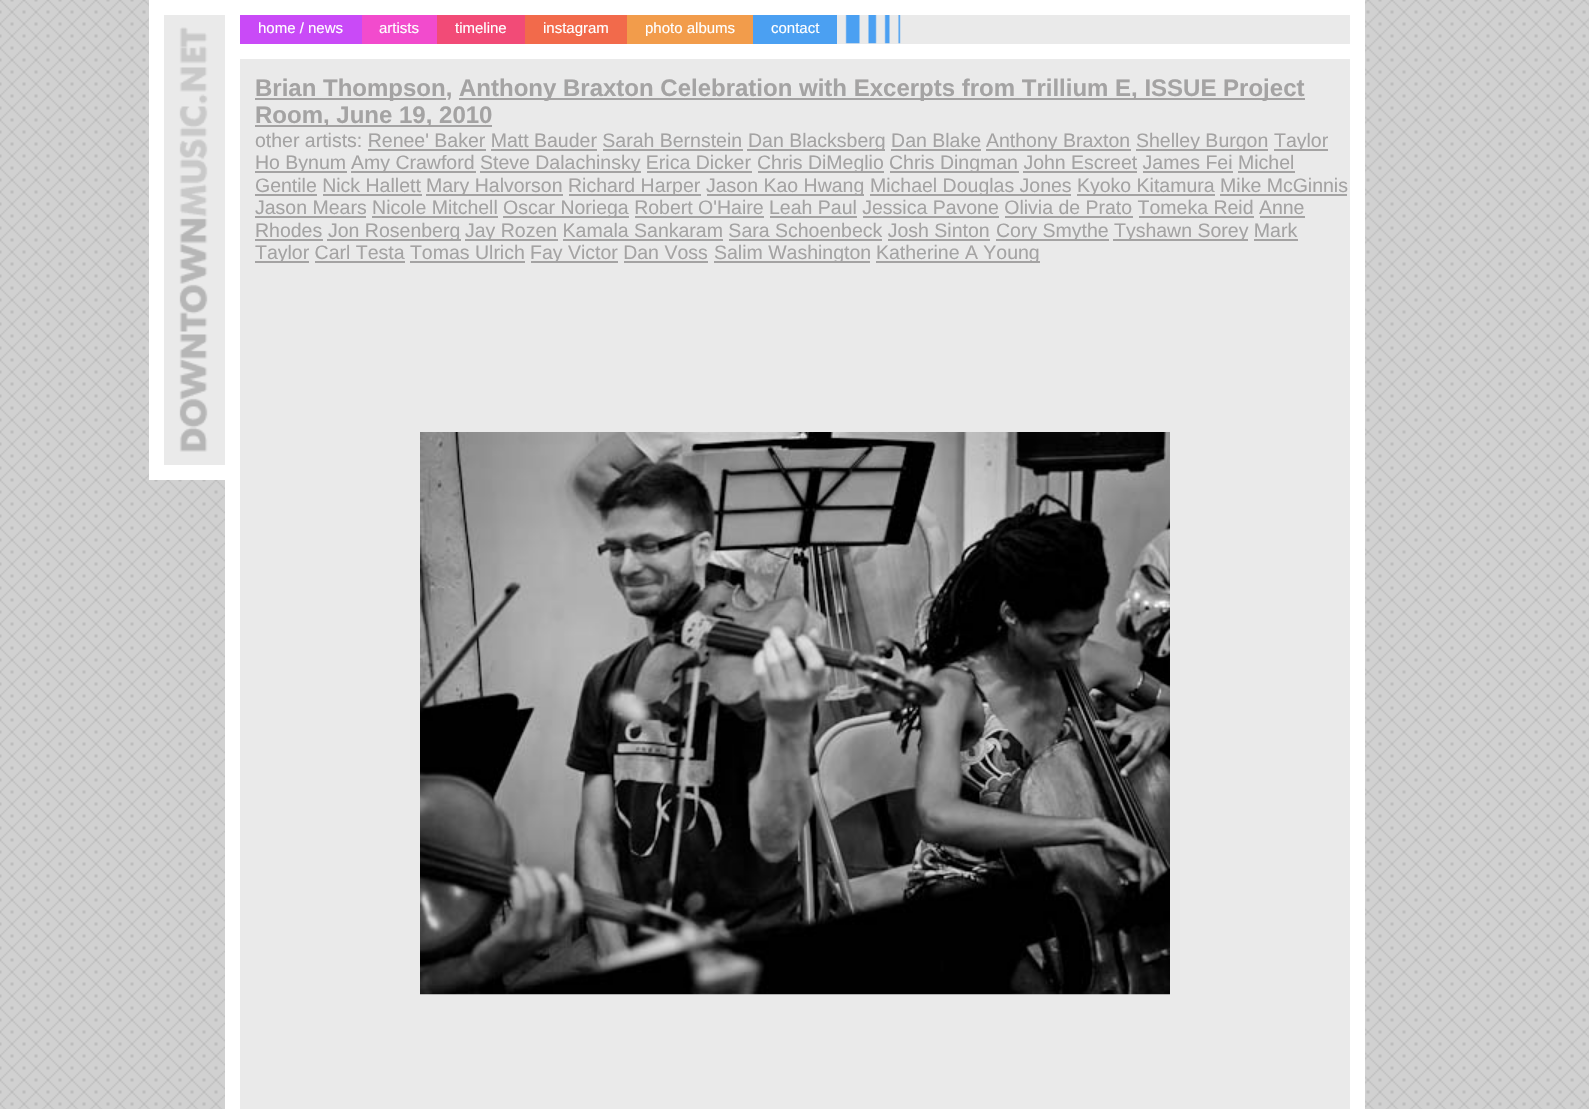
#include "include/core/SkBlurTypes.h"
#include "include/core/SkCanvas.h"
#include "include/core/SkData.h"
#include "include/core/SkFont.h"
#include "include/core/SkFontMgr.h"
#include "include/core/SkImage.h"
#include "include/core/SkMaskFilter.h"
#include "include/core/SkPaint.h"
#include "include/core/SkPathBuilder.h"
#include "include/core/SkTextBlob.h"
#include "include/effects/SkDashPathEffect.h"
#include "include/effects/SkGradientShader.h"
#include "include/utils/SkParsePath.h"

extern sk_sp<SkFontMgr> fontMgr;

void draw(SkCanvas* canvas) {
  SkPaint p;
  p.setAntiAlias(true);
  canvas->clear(SK_ColorWHITE);
  canvas->drawImageRect(SkImages::DeferredFromEncodedData(SkData::MakeFromFileName("images/1.png")), SkRect::MakeLTRB(0, 0, 1589, 1109), SkSamplingOptions());
  p.setColor(SkColorSetRGB(234, 234, 234));
  canvas->drawRect(SkRect::MakeLTRB(232.5f, 7.5f, 1357.5f, 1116.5f), p);
  p.setStyle(SkPaint::kStroke_Style);
  p.setStrokeWidth(15);
  p.setColor(SK_ColorWHITE);
  canvas->drawRect(SkRect::MakeLTRB(232.5f, 7.5f, 1357.5f, 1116.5f), p);
  p.setStyle(SkPaint::kFill_Style);
  p.setColor(SkColorSetRGB(234, 234, 234));
  canvas->drawRect(SkRect::MakeLTRB(164, 15, 225, 465), p);
  canvas->drawImageRect(SkImages::DeferredFromEncodedData(SkData::MakeFromFileName("images/2.png")), SkRect::MakeLTRB(179, 27, 208, 452), SkSamplingOptions());
  p.setColor(SK_ColorWHITE);
  canvas->drawRect(SkRect::MakeLTRB(164, 0, 225, 15), p);
  canvas->drawRect(SkRect::MakeLTRB(164, 465, 225, 480), p);
  canvas->drawRect(SkRect::MakeLTRB(149, 0, 164, 480), p);
  canvas->drawRect(SkRect::MakeLTRB(240, 44, 1350, 59), p);
  p.setColor(SkColorSetRGB(201, 74, 247));
  canvas->drawRect(SkRect::MakeLTRB(240, 15, 362, 44), p);
  p.setColor(SkColorSetRGB(242, 75, 205));
  canvas->drawRect(SkRect::MakeLTRB(362, 15, 437, 44), p);
  p.setColor(SkColorSetRGB(242, 75, 119));
  canvas->drawRect(SkRect::MakeLTRB(437, 15, 525, 44), p);
  p.setColor(SkColorSetRGB(242, 106, 75));
  canvas->drawRect(SkRect::MakeLTRB(525, 15, 627, 44), p);
  p.setColor(SkColorSetRGB(242, 156, 75));
  canvas->drawRect(SkRect::MakeLTRB(627, 15, 753, 44), p);
  p.setColor(SkColorSetRGB(75, 160, 242));
  canvas->drawRect(SkRect::MakeLTRB(753, 15, 837, 44), p);
  canvas->drawImageRect(SkImages::DeferredFromEncodedData(SkData::MakeFromFileName("images/3.png")), SkRect::MakeLTRB(845, 15, 901, 44), SkSamplingOptions());
  p.setColor(SkColorSetRGB(164, 163, 163));
  canvas->drawRect(SkRect::MakeLTRB(255, 98, 446, 100), p);
  canvas->drawRect(SkRect::MakeLTRB(459, 98, 1305, 100), p);
  canvas->drawRect(SkRect::MakeLTRB(255, 125, 492, 127), p);
  canvas->drawRect(SkRect::MakeLTRB(747, 149, 885, 151), p);
  canvas->drawRect(SkRect::MakeLTRB(986, 149, 1131, 151), p);
  canvas->drawRect(SkRect::MakeLTRB(1136, 149, 1268, 151), p);
  canvas->drawRect(SkRect::MakeLTRB(1274, 149, 1328, 151), p);
  canvas->drawRect(SkRect::MakeLTRB(368, 149, 486, 151), p);
  canvas->drawRect(SkRect::MakeLTRB(491, 149, 597, 151), p);
  canvas->drawRect(SkRect::MakeLTRB(603, 149, 743, 151), p);
  canvas->drawRect(SkRect::MakeLTRB(891, 149, 981, 151), p);
  canvas->drawRect(SkRect::MakeLTRB(255, 171, 347, 173), p);
  canvas->drawRect(SkRect::MakeLTRB(351, 171, 476, 173), p);
  canvas->drawRect(SkRect::MakeLTRB(480, 171, 641, 173), p);
  canvas->drawRect(SkRect::MakeLTRB(758, 171, 884, 173), p);
  canvas->drawRect(SkRect::MakeLTRB(890, 171, 1019, 173), p);
  canvas->drawRect(SkRect::MakeLTRB(647, 171, 752, 173), p);
  canvas->drawRect(SkRect::MakeLTRB(1023, 171, 1137, 173), p);
  canvas->drawRect(SkRect::MakeLTRB(1143, 171, 1233, 173), p);
  canvas->drawRect(SkRect::MakeLTRB(1238, 171, 1295, 173), p);
  canvas->drawRect(SkRect::MakeLTRB(255, 194, 317, 196), p);
  canvas->drawRect(SkRect::MakeLTRB(426, 194, 563, 196), p);
  canvas->drawRect(SkRect::MakeLTRB(569, 194, 701, 196), p);
  canvas->drawRect(SkRect::MakeLTRB(707, 194, 864, 196), p);
  canvas->drawRect(SkRect::MakeLTRB(870, 194, 1071, 196), p);
  canvas->drawRect(SkRect::MakeLTRB(1077, 194, 1215, 196), p);
  canvas->drawRect(SkRect::MakeLTRB(323, 194, 422, 196), p);
  canvas->drawRect(SkRect::MakeLTRB(1220, 194, 1347, 196), p);
  canvas->drawRect(SkRect::MakeLTRB(255, 216, 366, 218), p);
  canvas->drawRect(SkRect::MakeLTRB(503, 216, 629, 218), p);
  canvas->drawRect(SkRect::MakeLTRB(372, 216, 498, 218), p);
  canvas->drawRect(SkRect::MakeLTRB(635, 216, 764, 218), p);
  canvas->drawRect(SkRect::MakeLTRB(770, 216, 857, 218), p);
  canvas->drawRect(SkRect::MakeLTRB(863, 216, 999, 218), p);
  canvas->drawRect(SkRect::MakeLTRB(1005, 216, 1133, 218), p);
  canvas->drawRect(SkRect::MakeLTRB(1139, 216, 1254, 218), p);
  canvas->drawRect(SkRect::MakeLTRB(1260, 216, 1305, 218), p);
  canvas->drawRect(SkRect::MakeLTRB(255, 239, 323, 241), p);
  canvas->drawRect(SkRect::MakeLTRB(327, 239, 461, 241), p);
  canvas->drawRect(SkRect::MakeLTRB(465, 239, 558, 241), p);
  canvas->drawRect(SkRect::MakeLTRB(996, 239, 1109, 241), p);
  canvas->drawRect(SkRect::MakeLTRB(1113, 239, 1248, 241), p);
  canvas->drawRect(SkRect::MakeLTRB(563, 239, 723, 241), p);
  canvas->drawRect(SkRect::MakeLTRB(729, 239, 882, 241), p);
  canvas->drawRect(SkRect::MakeLTRB(888, 239, 990, 241), p);
  canvas->drawRect(SkRect::MakeLTRB(1254, 239, 1298, 241), p);
  canvas->drawRect(SkRect::MakeLTRB(255, 261, 309, 263), p);
  canvas->drawRect(SkRect::MakeLTRB(531, 261, 618, 263), p);
  canvas->drawRect(SkRect::MakeLTRB(714, 261, 870, 263), p);
  canvas->drawRect(SkRect::MakeLTRB(876, 261, 1040, 263), p);
  canvas->drawRect(SkRect::MakeLTRB(315, 261, 405, 263), p);
  canvas->drawRect(SkRect::MakeLTRB(410, 261, 525, 263), p);
  canvas->drawRect(SkRect::MakeLTRB(624, 261, 708, 263), p);
  canvas->drawImageRect(SkImages::DeferredFromEncodedData(SkData::MakeFromFileName("images/4.png")), SkRect::MakeLTRB(420, 432, 1170, 995), SkSamplingOptions());
  SkFont font1(fontMgr->matchFamilyStyle("Liberation Sans", SkFontStyle::Normal()), 15);
  font1.setSubpixel(true);
  p.setColor(SK_ColorWHITE);
  canvas->drawString("home / news", 258, 33, font1, p);
  canvas->drawString("artists", 379, 33, font1, p);
  canvas->drawString("timeline", 455, 33, font1, p);
  canvas->drawString("instagram", 543, 33, font1, p);
  canvas->drawString("photo albums", 645, 33, font1, p);
  canvas->drawString("contact", 771, 33, font1, p);
  SkFont font2(fontMgr->matchFamilyStyle("Liberation Sans", SkFontStyle::Bold()), 24);
  font2.setSubpixel(true);
  p.setColor(SkColorSetRGB(164, 163, 163));
  canvas->drawString("Brian Thompson,", 255, 96, font2, p);
  canvas->drawString("Anthony Braxton Celebration with Excerpts from Trillium E, ISSUE Project", 459, 96, font2, p);
  canvas->drawString("Room, June 19, 2010", 255, 123, font2, p);
  SkFont font3(fontMgr->matchFamilyStyle("Liberation Sans", SkFontStyle::Normal()), 19.5f);
  font3.setSubpixel(true);
  canvas->drawString("other artists: Renee' Baker Matt Bauder Sarah Bernstein", 255, 147, font3, p);
  canvas->drawString("Dan Blacksberg Dan Blake", 748, 147, font3, p);
  canvas->drawString("Anthony Braxton", 986, 147, font3, p);
  canvas->drawString("Shelley Burgon", 1136, 147, font3, p);
  canvas->drawString("Taylor", 1274, 147, font3, p);
  canvas->drawString("Ho Bynum", 255, 169, font3, p);
  canvas->drawString("Amy Crawford", 351, 169, font3, p);
  canvas->drawString("Steve Dalachinsky Erica Dicker", 480, 169, font3, p);
  canvas->drawString("Chris DiMeglio", 757, 169, font3, p);
  canvas->drawString("Chris Dingman John Escreet James Fei Michel", 889, 169, font3, p);
  canvas->drawString("Gentile Nick Hallett", 255, 192, font3, p);
  canvas->drawString("Mary Halvorson", 426, 192, font3, p);
  canvas->drawString("Richard Harper", 568, 192, font3, p);
  canvas->drawString("Jason Kao Hwang", 706, 192, font3, p);
  canvas->drawString("Michael Douglas Jones", 870, 192, font3, p);
  canvas->drawString("Kyoko Kitamura Mike McGinnis", 1077, 192, font3, p);
  canvas->drawString("Jason Mears Nicole Mitchell", 255, 214, font3, p);
  canvas->drawString("Oscar Noriega Robert O'Haire Leah Paul Jessica Pavone Olivia de Prato Tomeka Reid Anne", 503, 214, font3, p);
  canvas->drawString("Rhodes", 255, 237, font3, p);
  canvas->drawString("Jon Rosenberg", 328, 237, font3, p);
  canvas->drawString("Jay Rozen Kamala Sankaram Sara Schoenbeck Josh Sinton", 465, 237, font3, p);
  canvas->drawString("Cory Smythe", 996, 237, font3, p);
  canvas->drawString("Tyshawn Sorey Mark", 1114, 237, font3, p);
  canvas->drawString("Taylor Carl Testa Tomas Ulrich", 255, 259, font3, p);
  canvas->drawString("Fay Victor Dan Voss", 530, 259, font3, p);
  canvas->drawString("Salim Washington", 714, 259, font3, p);
  canvas->drawString("Katherine A Young", 876, 259, font3, p);
}
